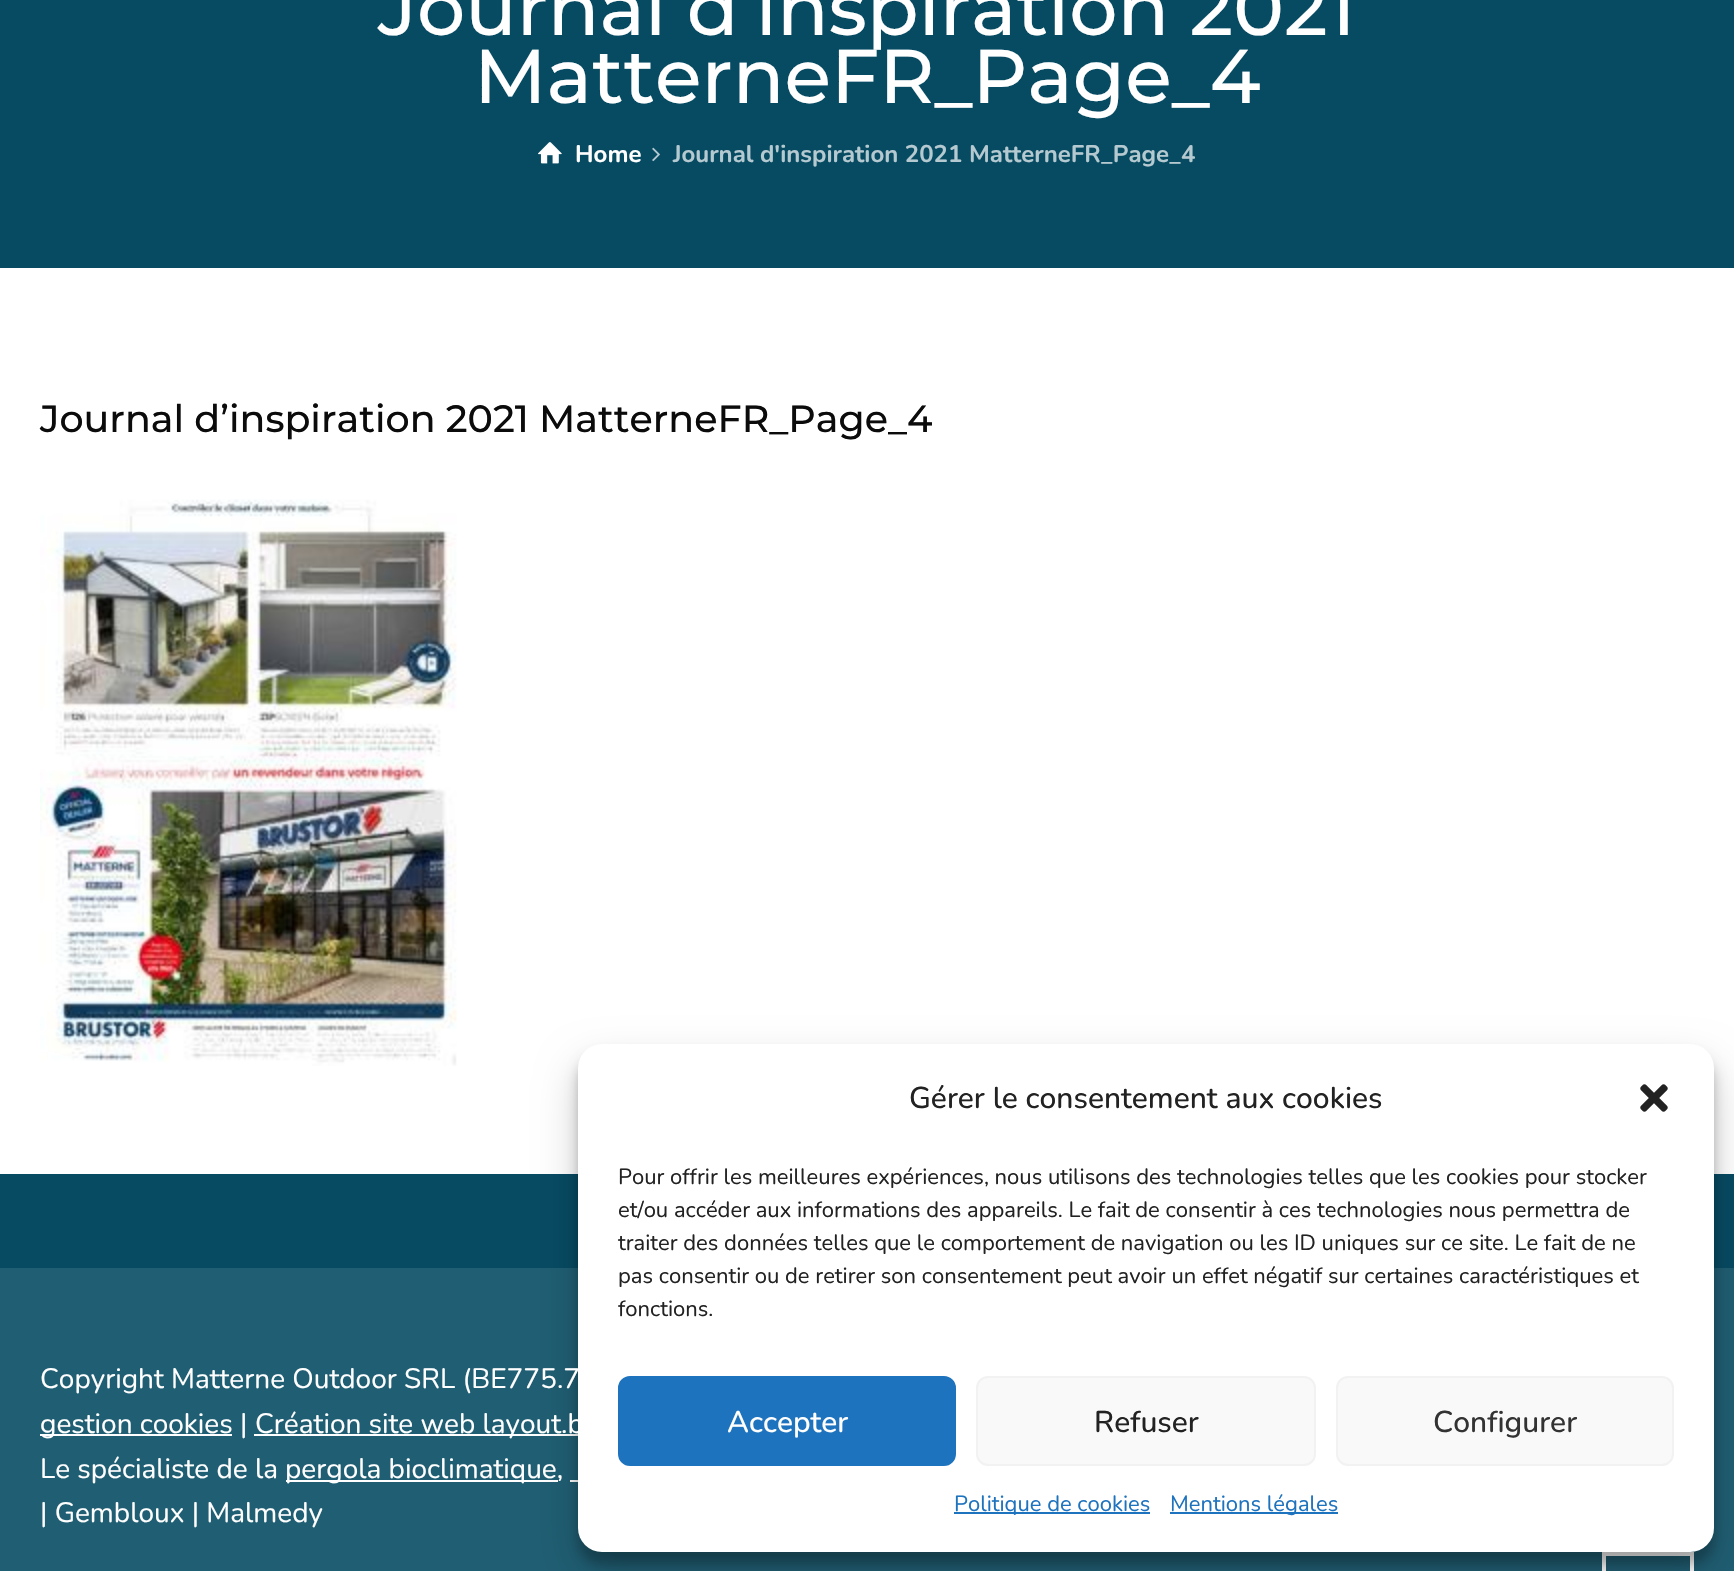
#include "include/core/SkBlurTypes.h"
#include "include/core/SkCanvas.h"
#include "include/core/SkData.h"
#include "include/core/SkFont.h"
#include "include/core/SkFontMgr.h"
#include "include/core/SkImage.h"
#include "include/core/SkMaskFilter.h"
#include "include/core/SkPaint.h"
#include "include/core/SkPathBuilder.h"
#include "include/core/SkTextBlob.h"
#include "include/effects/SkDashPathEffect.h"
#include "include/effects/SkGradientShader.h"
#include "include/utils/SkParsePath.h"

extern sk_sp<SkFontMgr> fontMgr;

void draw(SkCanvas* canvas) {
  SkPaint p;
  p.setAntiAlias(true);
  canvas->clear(SK_ColorWHITE);
  p.setColor(SkColorSetRGB(7, 75, 99));
  canvas->drawRect(SkRect::MakeLTRB(0, 0, 1734, 268), p);
  canvas->drawImageRect(SkImages::DeferredFromEncodedData(SkData::MakeFromFileName("images/1.png")), SkRect::MakeLTRB(538, 142, 562, 164), SkSamplingOptions());
  canvas->drawImageRect(SkImages::DeferredFromEncodedData(SkData::MakeFromFileName("images/2.png")), SkRect::MakeLTRB(652, 147, 660, 162), SkSamplingOptions());
  canvas->drawImageRect(SkImages::DeferredFromEncodedData(SkData::MakeFromFileName("images/3.png")), SkRect::MakeLTRB(40, 499, 457, 1066), SkSamplingOptions());
  canvas->drawRect(SkRect::MakeLTRB(0, 1174, 1734, 1268), p);
  p.setColor(SkColorSetRGB(32, 94, 115));
  canvas->drawRect(SkRect::MakeLTRB(0, 1268, 1734, 1571), p);
  p.setColor(SK_ColorWHITE);
  canvas->drawRect(SkRect::MakeLTRB(40, 1434, 232, 1436), p);
  canvas->drawRect(SkRect::MakeLTRB(254, 1434, 578, 1436), p);
  canvas->drawRect(SkRect::MakeLTRB(286, 1480, 558, 1482), p);
  canvas->drawRect(SkRect::MakeLTRB(570, 1480, 578, 1482), p);
  p.setStyle(SkPaint::kStroke_Style);
  p.setStrokeWidth(4);
  canvas->drawRect(SkRect::MakeLTRB(1604, 1554, 1692, 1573), p);
  p.setStyle(SkPaint::kFill_Style);
  p.setColor(SkColorSetARGB(59, 0, 0, 0));
  p.setMaskFilter(SkMaskFilter::MakeBlur(kNormal_SkBlurStyle, 6));
  canvas->drawRoundRect(SkRect::MakeLTRB(578, 1056, 1714, 1564), 24, 24, p);
  p.setMaskFilter(nullptr);
  p.setColor(SkColorSetARGB(48, 0, 0, 0));
  p.setMaskFilter(SkMaskFilter::MakeBlur(kNormal_SkBlurStyle, 20));
  canvas->drawRoundRect(SkRect::MakeLTRB(578, 1064, 1714, 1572), 24, 24, p);
  p.setMaskFilter(nullptr);
  p.setColor(SK_ColorWHITE);
  canvas->drawRoundRect(SkRect::MakeLTRB(578, 1044, 1714, 1552), 24, 24, p);
  canvas->drawImageRect(SkImages::DeferredFromEncodedData(SkData::MakeFromFileName("images/4.png")), SkRect::MakeLTRB(1640, 1084, 1668, 1112), SkSamplingOptions());
  p.setColor(SkColorSetRGB(30, 115, 190));
  canvas->drawRoundRect(SkRect::MakeLTRB(619, 1377, 955, 1465), 11, 11, p);
  p.setStyle(SkPaint::kStroke_Style);
  p.setStrokeWidth(2);
  canvas->drawRoundRect(SkRect::MakeLTRB(619, 1377, 955, 1465), 11, 11, p);
  p.setStyle(SkPaint::kFill_Style);
  p.setColor(SkColorSetRGB(249, 249, 249));
  canvas->drawRoundRect(SkRect::MakeLTRB(977, 1377, 1315, 1465), 11, 11, p);
  p.setStyle(SkPaint::kStroke_Style);
  p.setColor(SkColorSetRGB(242, 242, 242));
  canvas->drawRoundRect(SkRect::MakeLTRB(977, 1377, 1315, 1465), 11, 11, p);
  p.setStyle(SkPaint::kFill_Style);
  p.setColor(SkColorSetRGB(249, 249, 249));
  canvas->drawRoundRect(SkRect::MakeLTRB(1337, 1377, 1673, 1465), 11, 11, p);
  p.setStyle(SkPaint::kStroke_Style);
  p.setColor(SkColorSetRGB(242, 242, 242));
  canvas->drawRoundRect(SkRect::MakeLTRB(1337, 1377, 1673, 1465), 11, 11, p);
  p.setStyle(SkPaint::kFill_Style);
  p.setColor(SkColorSetRGB(30, 115, 190));
  canvas->drawRect(SkRect::MakeLTRB(954, 1512, 1150, 1514), p);
  canvas->drawRect(SkRect::MakeLTRB(1170, 1512, 1338, 1514), p);
  SkFont font1(fontMgr->matchFamilyStyle("Montserrat", SkFontStyle(500, SkFontStyle::kNormal_Width, SkFontStyle::kUpright_Slant)), 76);
  font1.setSubpixel(true);
  p.setColor(SK_ColorWHITE);
  canvas->drawString("Journal d’inspiration 2021", 378, 35, font1, p);
  canvas->drawString("MatterneFR_Page_4", 474, 103, font1, p);
  SkFont font2(fontMgr->matchFamilyStyle("Nunito", SkFontStyle::Bold()), 24);
  font2.setSubpixel(true);
  canvas->drawString("Home", 575, 162, font2, p);
  p.setColor(SkColorSetRGB(181, 201, 208));
  canvas->drawString("Journal d'inspiration 2021 MatterneFR_Page_4", 673, 162, font2, p);
  SkFont font3(fontMgr->matchFamilyStyle("Montserrat", SkFontStyle(500, SkFontStyle::kNormal_Width, SkFontStyle::kUpright_Slant)), 38);
  font3.setSubpixel(true);
  p.setColor(SkColorSetRGB(11, 11, 11));
  canvas->drawString("Journal d’inspiration 2021 MatterneFR_Page_4", 40, 432, font3, p);
  SkFont font4(fontMgr->matchFamilyStyle("Nunito", SkFontStyle::Normal()), 28);
  font4.setSubpixel(true);
  p.setColor(SK_ColorWHITE);
  canvas->drawString("Copyright Matterne Outdoor SRL (BE775.7", 40, 1388, font4, p);
  canvas->drawString("gestion cookies |", 40, 1433, font4, p);
  canvas->drawString("Création site web layout.b", 255, 1433, font4, p);
  canvas->drawString("Le spécialiste de la", 40, 1478, font4, p);
  canvas->drawString("pergola bioclimatique,", 285, 1478, font4, p);
  canvas->drawString("| Gembloux | Malmedy", 40, 1522, font4, p);
  SkFont font5(fontMgr->matchFamilyStyle("Nunito", SkFontStyle(500, SkFontStyle::kNormal_Width, SkFontStyle::kUpright_Slant)), 30);
  font5.setSubpixel(true);
  p.setColor(SkColorSetRGB(34, 34, 34));
  canvas->drawString("Gérer le consentement aux cookies", 909, 1108, font5, p);
  SkFont font6(fontMgr->matchFamilyStyle("Nunito", SkFontStyle::Normal()), 22);
  font6.setSubpixel(true);
  canvas->drawString("Pour offrir les meilleures expériences, nous utilisons des technologies telles que les cookies pour stocker", 618, 1184, font6, p);
  canvas->drawString("et/ou accéder aux informations des appareils. Le fait de consentir à ces technologies nous permettra de", 618, 1217, font6, p);
  canvas->drawString("traiter des données telles que le comportement de navigation ou les ID uniques sur ce site. Le fait de ne", 618, 1250, font6, p);
  canvas->drawString("pas consentir ou de retirer son consentement peut avoir un effet négatif sur certaines caractéristiques et", 618, 1283, font6, p);
  canvas->drawString("fonctions.", 618, 1316, font6, p);
  p.setColor(SK_ColorWHITE);
  canvas->drawString("Accepter", 727, 1432, font5, p);
  p.setColor(SkColorSetRGB(34, 34, 34));
  canvas->drawString("Refuser", 1094, 1432, font5, p);
  p.setColor(SkColorSetRGB(51, 51, 51));
  canvas->drawString("Configurer", 1433, 1432, font5, p);
  p.setColor(SkColorSetRGB(30, 115, 190));
  canvas->drawString("Politique de cookies", 954, 1511, font6, p);
  canvas->drawString("Mentions légales", 1170, 1511, font6, p);
}
